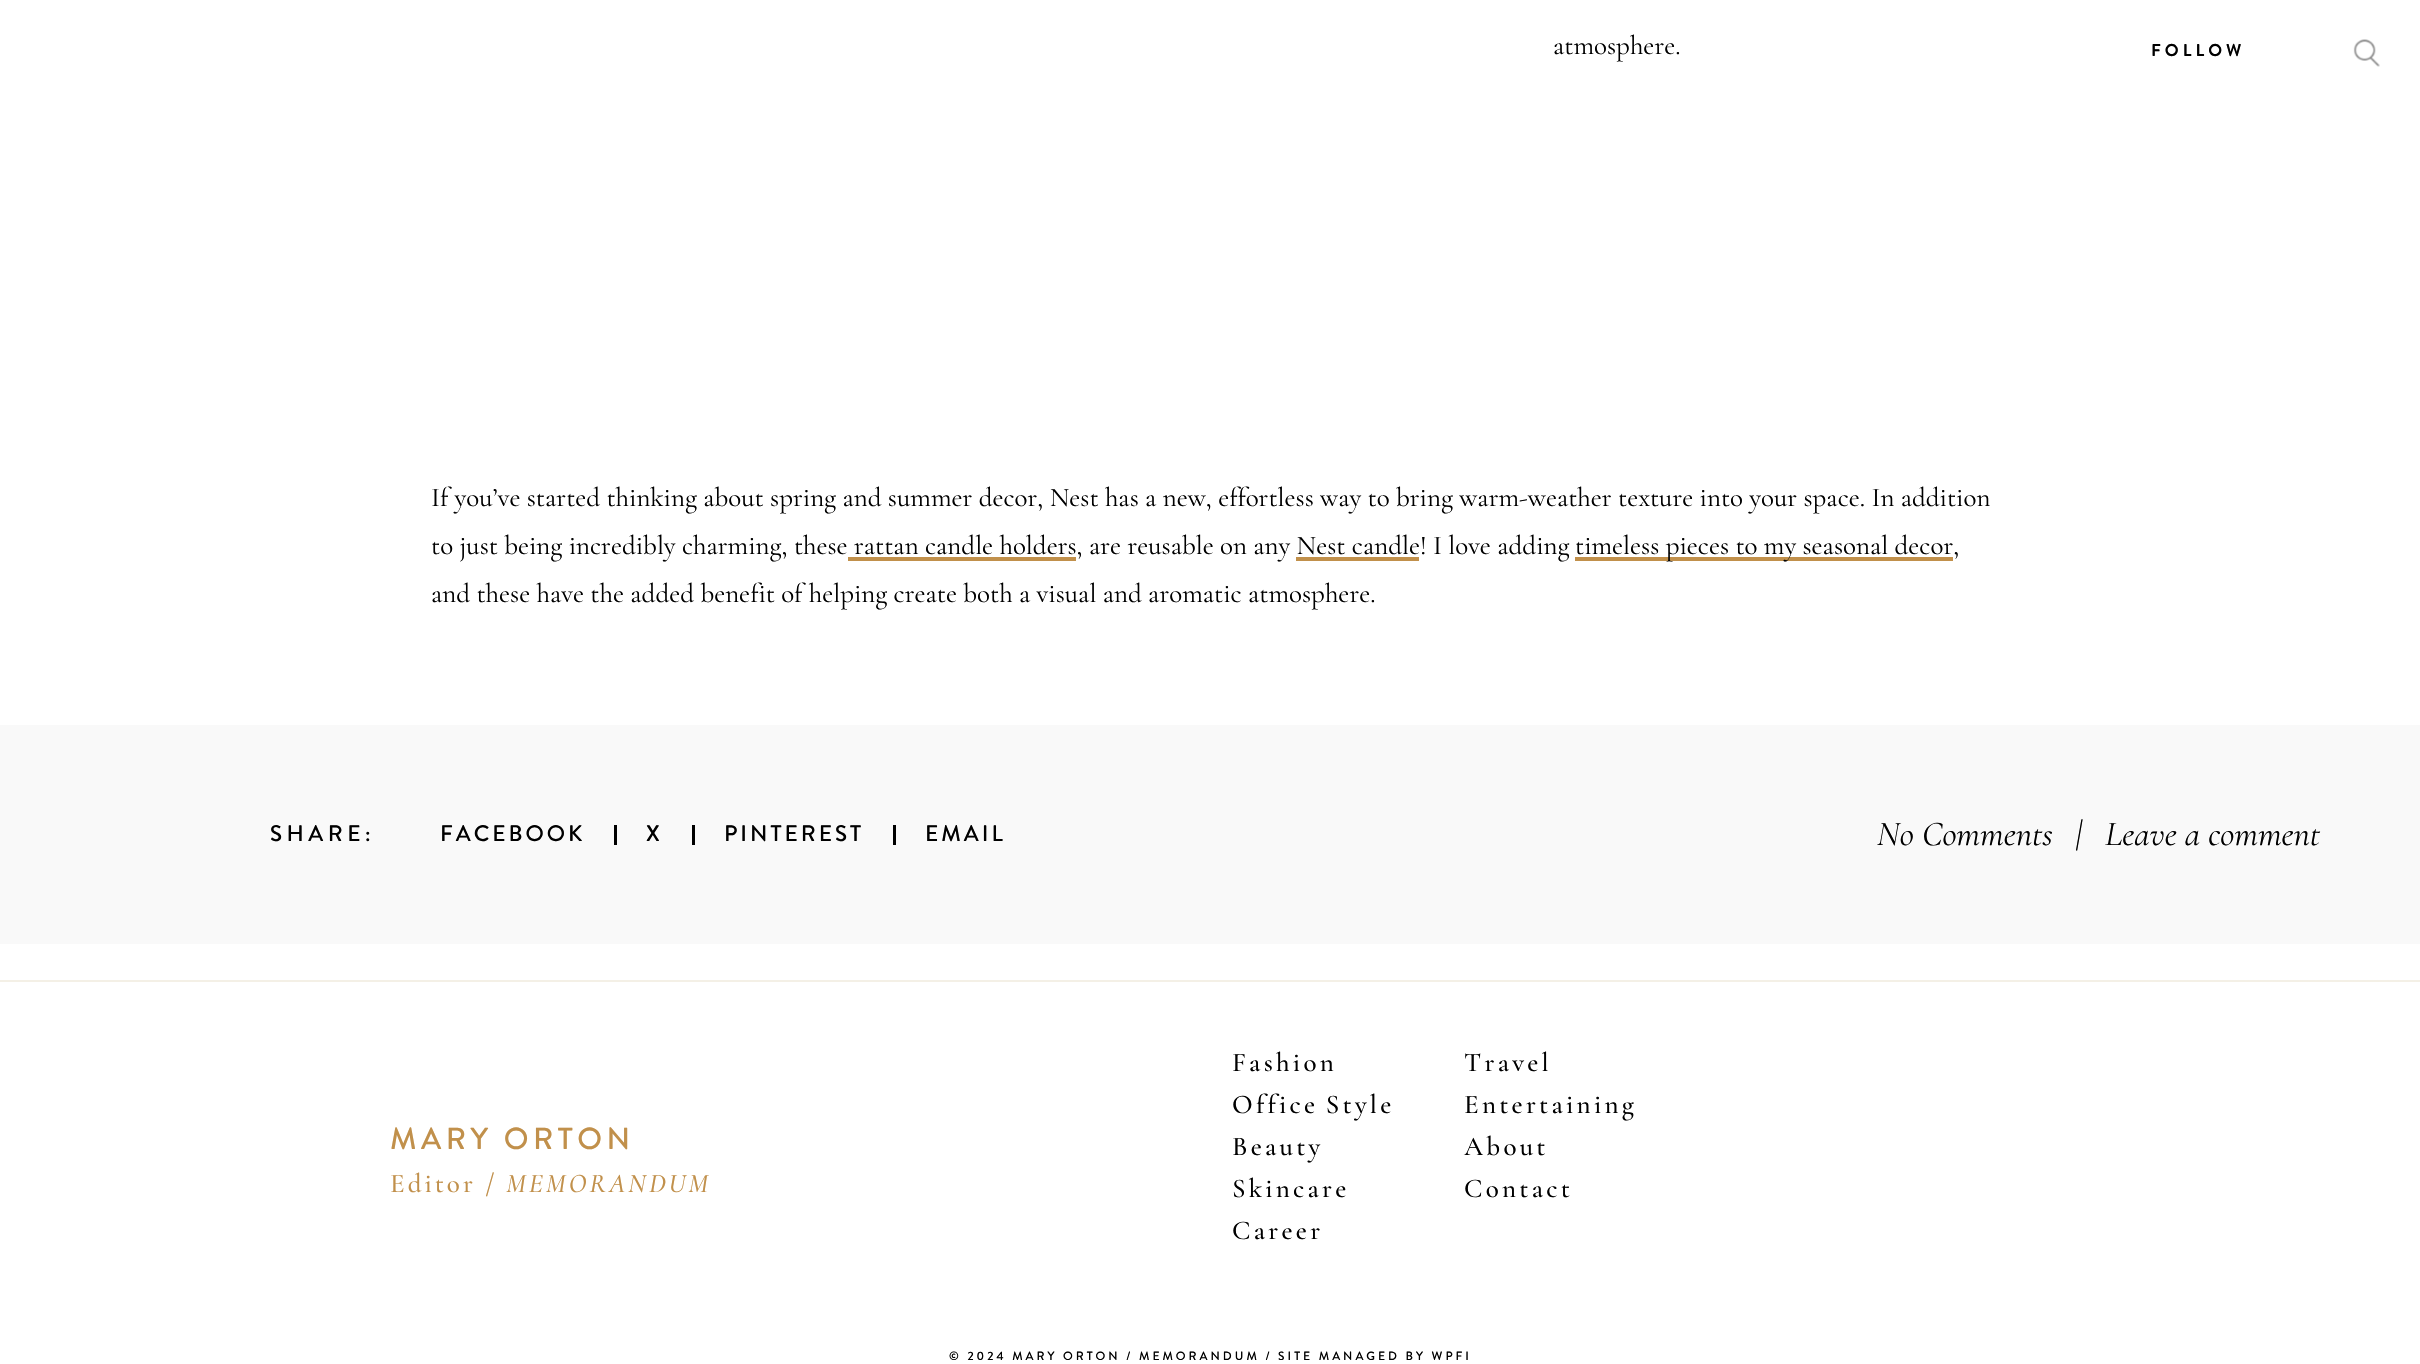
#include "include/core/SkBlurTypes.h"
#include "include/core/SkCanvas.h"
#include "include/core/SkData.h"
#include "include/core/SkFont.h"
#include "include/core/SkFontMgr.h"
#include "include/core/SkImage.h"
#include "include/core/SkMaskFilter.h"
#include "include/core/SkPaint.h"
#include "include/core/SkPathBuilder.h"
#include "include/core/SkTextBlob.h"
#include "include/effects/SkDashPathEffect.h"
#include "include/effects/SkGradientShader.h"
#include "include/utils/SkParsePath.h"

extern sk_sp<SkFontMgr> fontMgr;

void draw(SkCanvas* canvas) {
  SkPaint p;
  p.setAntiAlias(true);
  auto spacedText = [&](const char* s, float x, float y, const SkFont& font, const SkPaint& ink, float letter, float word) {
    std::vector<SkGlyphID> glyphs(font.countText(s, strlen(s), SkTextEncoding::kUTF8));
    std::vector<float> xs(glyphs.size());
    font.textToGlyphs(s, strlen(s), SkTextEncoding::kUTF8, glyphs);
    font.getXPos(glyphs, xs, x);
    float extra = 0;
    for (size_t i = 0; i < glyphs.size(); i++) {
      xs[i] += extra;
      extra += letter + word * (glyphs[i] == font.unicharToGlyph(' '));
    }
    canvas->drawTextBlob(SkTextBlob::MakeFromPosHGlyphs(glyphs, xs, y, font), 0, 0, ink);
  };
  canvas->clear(SK_ColorWHITE);
  canvas->drawImageRect(SkImages::DeferredFromEncodedData(SkData::MakeFromFileName("images/1.png")), SkRect::MakeLTRB(2353, 39, 2380, 67), SkSamplingOptions());
  p.setColor(SkColorSetRGB(193, 144, 75));
  canvas->drawRect(SkRect::MakeLTRB(1575, 557, 1953, 561), p);
  p.setColor(SkColorSetRGB(249, 249, 249));
  canvas->drawRect(SkRect::MakeLTRB(0, 725, 2420, 944), p);
  p.setColor(SK_ColorBLACK);
  canvas->drawRect(SkRect::MakeLTRB(614, 825, 617, 845), p);
  canvas->drawRect(SkRect::MakeLTRB(692, 825, 695, 845), p);
  canvas->drawRect(SkRect::MakeLTRB(893, 825, 896, 845), p);
  p.setColor(SkColorSetRGB(244, 240, 230));
  canvas->drawRect(SkRect::MakeLTRB(0, 980, 2420, 982), p);
  SkFont font1(fontMgr->matchFamilyStyle("Cormorant Garamond", SkFontStyle::Normal()), 27);
  font1.setSubpixel(true);
  p.setColor(SK_ColorBLACK);
  canvas->drawString("atmosphere.", 1553, 54, font1, p);
  SkFont font2(fontMgr->matchFamilyStyle("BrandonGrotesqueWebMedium", SkFontStyle::Bold()), 16.5f);
  font2.setSubpixel(true);
  spacedText("FOLLOW", 2151, 56, font2, p, 4.5f, 0);
  canvas->drawString("If you’ve started thinking about spring and summer decor, Nest has a new, effortless way to bring warm-weather texture into your space. In addition", 431, 506, font1, p);
  canvas->drawString("to just being incredibly charming, these rattan candle holders, are reusable on any Nest candle! I love adding", 431, 554, font1, p);
  p.setColor(SkColorSetRGB(193, 144, 75));
  canvas->drawRect(SkRect::MakeLTRB(848, 557, 1076, 561), p);
  canvas->drawRect(SkRect::MakeLTRB(1296, 557, 1419, 561), p);
  p.setColor(SK_ColorBLACK);
  canvas->drawString("timeless pieces to my seasonal decor,", 1575, 554, font1, p);
  canvas->drawString("and these have the added benefit of helping create both a visual and aromatic atmosphere.", 431, 602, font1, p);
  SkFont font3(fontMgr->matchFamilyStyle("BrandonGrotesqueWebMedium", SkFontStyle(500, SkFontStyle::kNormal_Width, SkFontStyle::kUpright_Slant)), 22.5f);
  font3.setSubpixel(true);
  spacedText("SHARE:", 270, 841, font3, p, 4.5f, 0);
  spacedText("FACEBOOK", 440, 841, font3, p, 3, 0);
  spacedText("X", 646, 841, font3, p, 3, 0);
  spacedText("PINTEREST", 724, 841, font3, p, 3, 0);
  spacedText("EMAIL", 925, 841, font3, p, 3, 0);
  SkFont font4(fontMgr->matchFamilyStyle("Cormorant Garamond", SkFontStyle::Italic()), 35);
  font4.setSubpixel(true);
  canvas->drawString("No Comments", 1877, 845, font4, p);
  canvas->drawString("|", 2076, 845, font4, p);
  canvas->drawString("Leave a comment", 2105, 845, font4, p);
  SkFont font5(fontMgr->matchFamilyStyle("BrandonGrotesqueWebMedium", SkFontStyle(500, SkFontStyle::kNormal_Width, SkFontStyle::kUpright_Slant)), 30.5f);
  font5.setSubpixel(true);
  p.setColor(SkColorSetRGB(193, 144, 75));
  spacedText("MARY ORTON", 390, 1149, font5, p, 4.5f, 0);
  SkFont font6(fontMgr->matchFamilyStyle("Cormorant Garamond", SkFontStyle(500, SkFontStyle::kNormal_Width, SkFontStyle::kUpright_Slant)), 27);
  font6.setSubpixel(true);
  spacedText("Editor /", 390, 1192, font6, p, 3, 0);
  SkFont font7(fontMgr->matchFamilyStyle("Cormorant Garamond", SkFontStyle(500, SkFontStyle::kNormal_Width, SkFontStyle::kItalic_Slant)), 27);
  font7.setSubpixel(true);
  spacedText("MEMORANDUM", 506, 1192, font7, p, 3, 0);
  p.setColor(SK_ColorBLACK);
  spacedText("Fashion", 1232, 1071, font6, p, 3.25f, 0);
  spacedText("Travel", 1464, 1071, font6, p, 3.25f, 0);
  spacedText("Office Style", 1232, 1113, font6, p, 3.25f, -2);
  spacedText("Entertaining", 1464, 1113, font6, p, 3.25f, 0);
  spacedText("Beauty", 1232, 1155, font6, p, 3.25f, 0);
  spacedText("About", 1464, 1155, font6, p, 3.25f, 0);
  spacedText("Skincare", 1232, 1197, font6, p, 3.25f, 0);
  spacedText("Contact", 1464, 1197, font6, p, 3.25f, 0);
  spacedText("Career", 1232, 1239, font6, p, 3.25f, 0);
  SkFont font8(fontMgr->matchFamilyStyle("BrandonGrotesqueWebMedium", SkFontStyle(500, SkFontStyle::kNormal_Width, SkFontStyle::kUpright_Slant)), 12);
  font8.setSubpixel(true);
  spacedText("© 2024 MARY ORTON / MEMORANDUM / SITE MANAGED BY WPFI", 949, 1360, font8, p, 3, 0);
}
